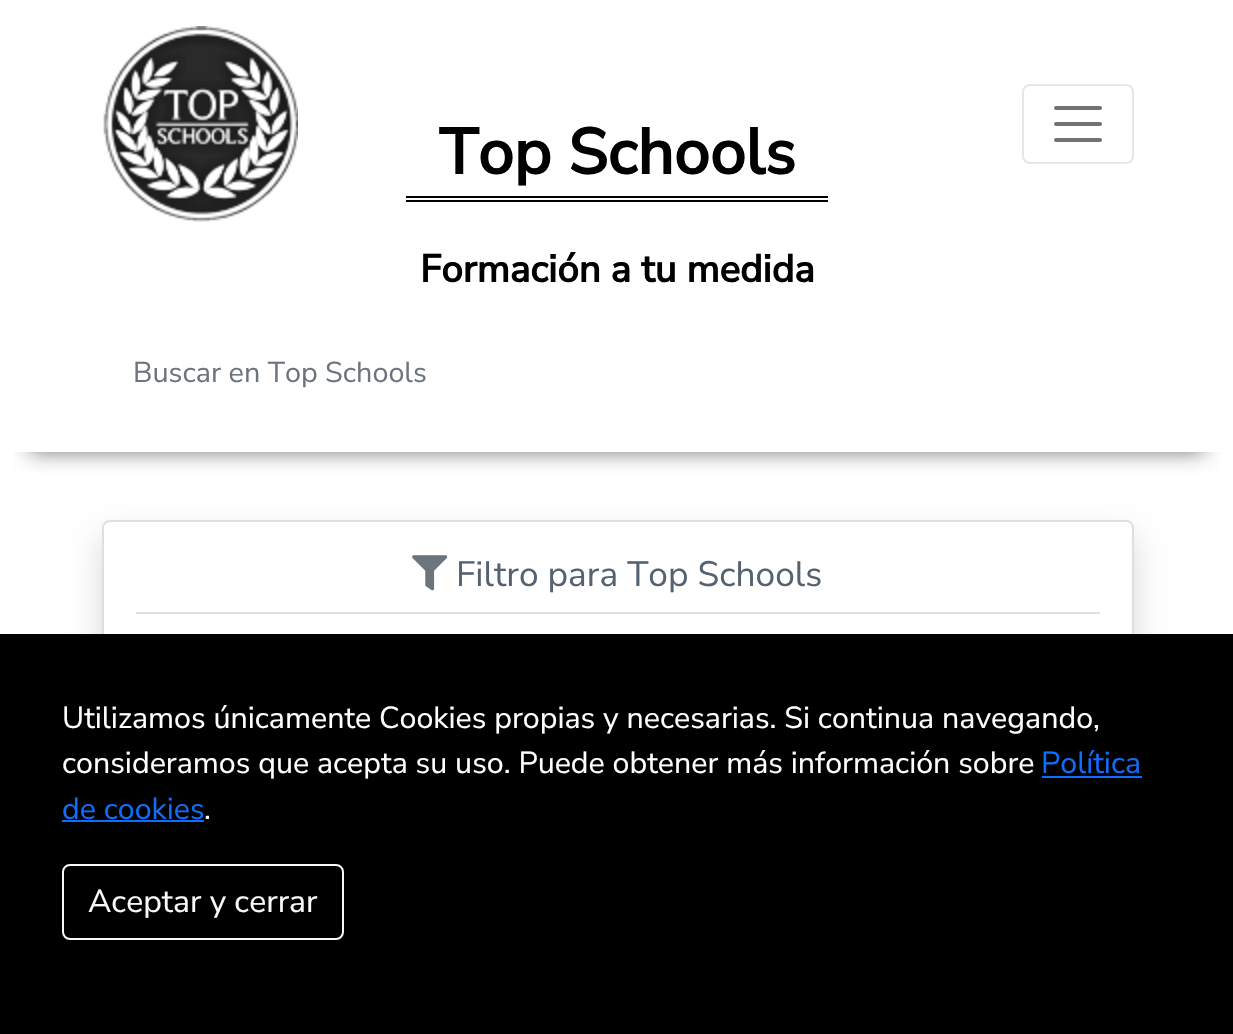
#include "include/core/SkBlurTypes.h"
#include "include/core/SkCanvas.h"
#include "include/core/SkData.h"
#include "include/core/SkFont.h"
#include "include/core/SkFontMgr.h"
#include "include/core/SkImage.h"
#include "include/core/SkMaskFilter.h"
#include "include/core/SkPaint.h"
#include "include/core/SkPathBuilder.h"
#include "include/core/SkTextBlob.h"
#include "include/effects/SkDashPathEffect.h"
#include "include/effects/SkGradientShader.h"
#include "include/utils/SkParsePath.h"

extern sk_sp<SkFontMgr> fontMgr;

void draw(SkCanvas* canvas) {
  SkPaint p;
  p.setAntiAlias(true);
  canvas->clear(SK_ColorWHITE);
  canvas->save();
  canvas->clipRect(SkRect::MakeLTRB(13, 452, 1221, 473));
  p.setColor(SkColorSetRGB(119, 119, 119));
  p.setMaskFilter(SkMaskFilter::MakeBlur(kNormal_SkBlurStyle, 10));
  canvas->drawRect(SkRect::MakeLTRB(30, 92, 1204, 452), p);
  p.setMaskFilter(nullptr);
  canvas->restore();
  canvas->drawImageRect(SkImages::DeferredFromEncodedData(SkData::MakeFromFileName("images/1.png")), SkRect::MakeLTRB(103, 26, 298, 222), SkSamplingOptions());
  p.setStyle(SkPaint::kStroke_Style);
  p.setStrokeWidth(2);
  p.setColor(SkColorSetRGB(230, 230, 230));
  canvas->drawRoundRect(SkRect::MakeLTRB(1023, 85, 1133, 163), 7, 7, p);
  p.setStrokeWidth(4);
  p.setStrokeCap(SkPaint::kRound_Cap);
  p.setColor(SkColorSetRGB(115, 115, 115));
  canvas->drawPath(SkPathBuilder().moveTo(1056, 108).lineTo(1100, 108).moveTo(1056, 124).lineTo(1100, 124).moveTo(1056, 140).lineTo(1100, 140).detach(), p);
  p.setStyle(SkPaint::kFill_Style);
  p.setColor(SK_ColorBLACK);
  canvas->drawRect(SkRect::MakeLTRB(406, 196, 828, 198), p);
  canvas->drawRect(SkRect::MakeLTRB(406, 200, 828, 202), p);
  canvas->save();
  canvas->clipPath(SkPathBuilder(SkPathFillType::kEvenOdd).moveTo(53, 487).lineTo(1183, 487).lineTo(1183, 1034).lineTo(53, 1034).close().moveTo(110, 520).lineTo(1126, 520).cubicTo(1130.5f, 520, 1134, 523.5f, 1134, 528).lineTo(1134, 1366).cubicTo(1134, 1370.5f, 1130.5f, 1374, 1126, 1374).lineTo(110, 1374).cubicTo(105.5f, 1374, 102, 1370.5f, 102, 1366).lineTo(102, 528).cubicTo(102, 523.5f, 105.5f, 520, 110, 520).close().detach(), true);
  p.setColor(SkColorSetARGB(38, 0, 0, 0));
  p.setMaskFilter(SkMaskFilter::MakeBlur(kNormal_SkBlurStyle, 16));
  canvas->drawRoundRect(SkRect::MakeLTRB(102, 536, 1134, 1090), 8, 8, p);
  p.setMaskFilter(nullptr);
  canvas->restore();
  p.setStyle(SkPaint::kStroke_Style);
  p.setStrokeWidth(2);
  p.setStrokeCap(SkPaint::kButt_Cap);
  p.setColor(SkColorSetRGB(223, 223, 223));
  canvas->drawRoundRect(SkRect::MakeLTRB(103, 521, 1133, 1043), 7, 7, p);
  p.setStyle(SkPaint::kFill_Style);
  p.setColor(SkColorSetRGB(222, 226, 230));
  canvas->drawRect(SkRect::MakeLTRB(136, 612, 1100, 614), p);
  canvas->drawImageRect(SkImages::DeferredFromEncodedData(SkData::MakeFromFileName("images/2.png")), SkRect::MakeLTRB(412, 555, 448, 591), SkSamplingOptions());
  p.setColor(SK_ColorBLACK);
  canvas->drawRect(SkRect::MakeLTRB(0, 634, 1233, 1034), p);
  p.setColor(SkColorSetRGB(13, 110, 253));
  canvas->drawRect(SkRect::MakeLTRB(1042, 776, 1142, 778), p);
  canvas->drawRect(SkRect::MakeLTRB(62, 820, 204, 822), p);
  p.setStyle(SkPaint::kStroke_Style);
  p.setColor(SkColorSetRGB(248, 249, 250));
  canvas->drawRoundRect(SkRect::MakeLTRB(63, 865, 343, 939), 7, 7, p);
  SkFont font1(fontMgr->matchFamilyStyle("Nunito Sans", SkFontStyle::Bold()), 64);
  font1.setSubpixel(true);
  p.setStyle(SkPaint::kFill_Style);
  p.setColor(SK_ColorBLACK);
  canvas->drawString("Top Schools", 439, 174, font1, p);
  SkFont font2(fontMgr->matchFamilyStyle("Nunito Sans", SkFontStyle::Bold()), 38.4f);
  font2.setSubpixel(true);
  canvas->drawString("Formación a tu medida", 420, 282, font2, p);
  SkFont font3(fontMgr->matchFamilyStyle("Nunito Sans", SkFontStyle::Normal()), 28.75f);
  font3.setSubpixel(true);
  p.setColor(SkColorSetRGB(108, 117, 125));
  canvas->drawString("Buscar en Top Schools", 133, 382, font3, p);
  SkFont font4(fontMgr->matchFamilyStyle("Nunito Sans", SkFontStyle::Normal()), 35.25f);
  font4.setSubpixel(true);
  p.setColor(SkColorSetRGB(85, 98, 112));
  canvas->drawString("Filtro para Top Schools", 456, 586, font4, p);
  SkFont font5(fontMgr->matchFamilyStyle("Nunito Sans", SkFontStyle::Normal()), 30.4f);
  font5.setSubpixel(true);
  p.setColor(SK_ColorWHITE);
  canvas->drawString("Utilizamos únicamente Cookies propias y necesarias. Si continua navegando,", 62, 728, font5, p);
  canvas->drawString("consideramos que acepta su uso. Puede obtener más información sobre", 62, 773, font5, p);
  p.setColor(SkColorSetRGB(13, 110, 253));
  canvas->drawString("Política", 1041, 773, font5, p);
  canvas->drawString("de cookies", 62, 819, font5, p);
  p.setColor(SK_ColorWHITE);
  canvas->drawString(".", 204, 819, font5, p);
  SkFont font6(fontMgr->matchFamilyStyle("Nunito Sans", SkFontStyle::Normal()), 32);
  font6.setSubpixel(true);
  p.setColor(SkColorSetRGB(248, 249, 250));
  canvas->drawString("Aceptar y cerrar", 88, 912, font6, p);
}
